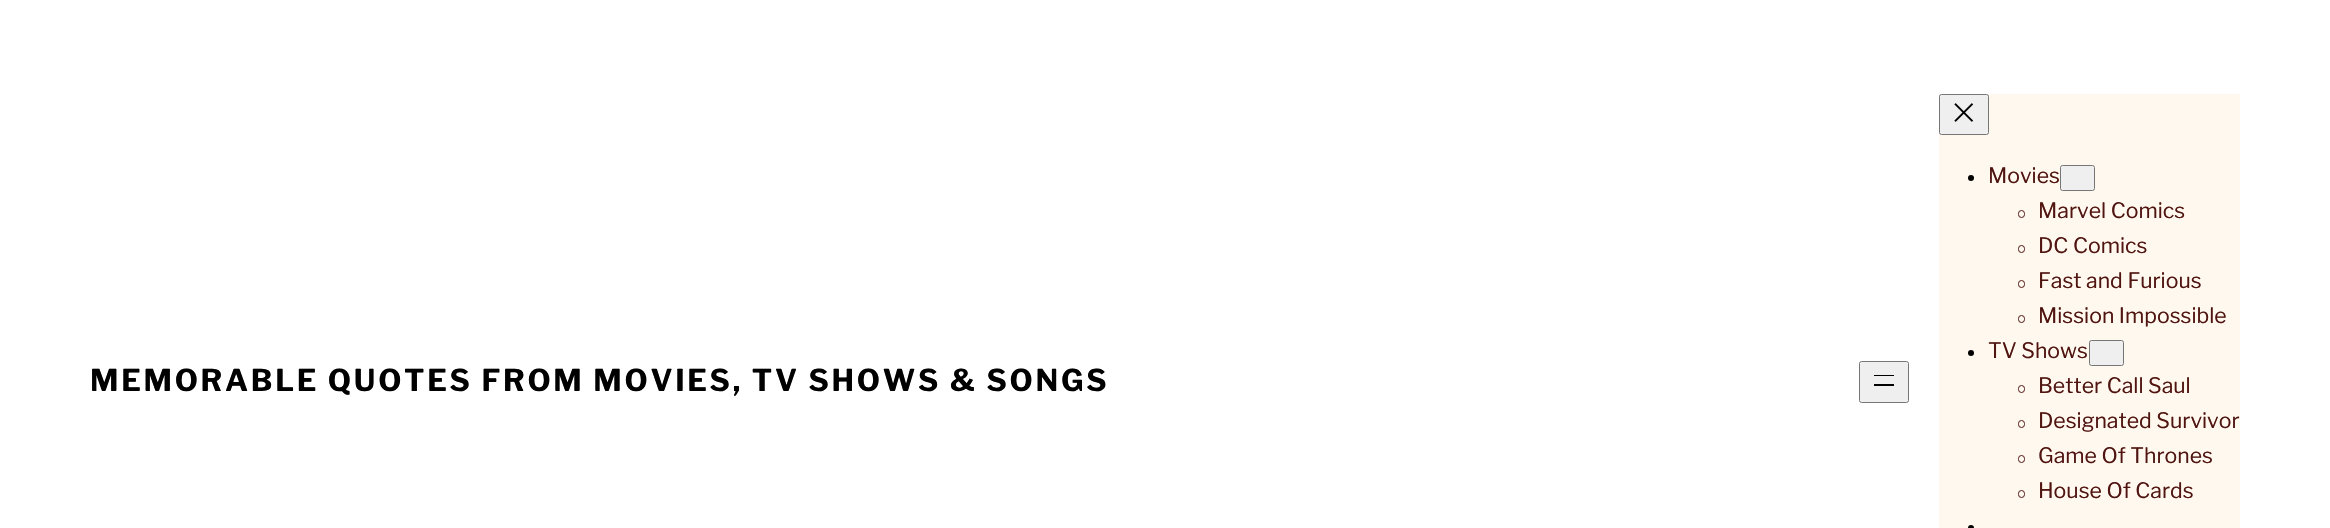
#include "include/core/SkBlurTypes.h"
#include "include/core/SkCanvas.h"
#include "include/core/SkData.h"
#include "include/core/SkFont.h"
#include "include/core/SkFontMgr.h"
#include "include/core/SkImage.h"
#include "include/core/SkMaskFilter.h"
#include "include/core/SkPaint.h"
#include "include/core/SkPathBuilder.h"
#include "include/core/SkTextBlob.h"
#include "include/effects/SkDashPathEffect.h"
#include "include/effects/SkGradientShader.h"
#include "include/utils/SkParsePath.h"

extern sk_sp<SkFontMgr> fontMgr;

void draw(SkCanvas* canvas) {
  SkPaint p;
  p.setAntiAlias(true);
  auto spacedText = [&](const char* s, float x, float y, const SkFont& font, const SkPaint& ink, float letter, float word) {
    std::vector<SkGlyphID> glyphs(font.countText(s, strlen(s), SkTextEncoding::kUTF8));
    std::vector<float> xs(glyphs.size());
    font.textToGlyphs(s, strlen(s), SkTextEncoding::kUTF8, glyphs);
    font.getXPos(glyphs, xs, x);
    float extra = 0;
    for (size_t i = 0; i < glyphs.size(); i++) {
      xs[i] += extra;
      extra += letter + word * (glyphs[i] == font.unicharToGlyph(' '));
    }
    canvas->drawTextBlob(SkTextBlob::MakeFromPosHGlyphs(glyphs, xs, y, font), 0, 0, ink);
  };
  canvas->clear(SK_ColorWHITE);
  p.setColor(SkColorSetRGB(239, 239, 239));
  canvas->drawRoundRect(SkRect::MakeLTRB(1859.5f, 361.5f, 1908.5f, 402.5f), 2, 2, p);
  p.setStyle(SkPaint::kStroke_Style);
  p.setStrokeWidth(1);
  p.setColor(SkColorSetRGB(118, 118, 118));
  canvas->drawRoundRect(SkRect::MakeLTRB(1859.5f, 361.5f, 1908.5f, 402.5f), 2, 2, p);
  p.setStyle(SkPaint::kFill_Style);
  p.setColor(SK_ColorBLACK);
  canvas->drawRect(SkRect::MakeLTRB(1874, 375, 1894, 376), p);
  canvas->drawRect(SkRect::MakeLTRB(1874, 384, 1894, 386), p);
  p.setColor(SkColorSetRGB(255, 248, 238));
  canvas->drawRect(SkRect::MakeLTRB(1939, 94, 2240, 528), p);
  p.setColor(SkColorSetRGB(239, 239, 239));
  canvas->drawRoundRect(SkRect::MakeLTRB(1939.5f, 94.5f, 1988.5f, 134.5f), 2, 2, p);
  p.setStyle(SkPaint::kStroke_Style);
  p.setColor(SkColorSetRGB(118, 118, 118));
  canvas->drawRoundRect(SkRect::MakeLTRB(1939.5f, 94.5f, 1988.5f, 134.5f), 2, 2, p);
  canvas->drawImageRect(SkImages::DeferredFromEncodedData(SkData::MakeFromFileName("images/1.png")), SkRect::MakeLTRB(1954, 103, 1974, 122), SkSamplingOptions());
  p.setStyle(SkPaint::kFill_Style);
  p.setColor(SK_ColorBLACK);
  canvas->drawCircle(1971, 178, 3, p);
  p.setColor(SkColorSetRGB(239, 239, 239));
  canvas->drawRoundRect(SkRect::MakeLTRB(2060.5f, 165.5f, 2094.5f, 190.5f), 2, 2, p);
  p.setStyle(SkPaint::kStroke_Style);
  p.setColor(SkColorSetRGB(118, 118, 118));
  canvas->drawRoundRect(SkRect::MakeLTRB(2060.5f, 165.5f, 2094.5f, 190.5f), 2, 2, p);
  p.setColor(SkColorSetRGB(80, 21, 17));
  canvas->drawRoundRect(SkRect::MakeLTRB(2018.5f, 210.5f, 2024.5f, 217.5f), 3, 3, p);
  canvas->drawRoundRect(SkRect::MakeLTRB(2018.5f, 245.5f, 2024.5f, 252.5f), 3, 3, p);
  canvas->drawRoundRect(SkRect::MakeLTRB(2018.5f, 280.5f, 2024.5f, 287.5f), 3, 3, p);
  canvas->drawRoundRect(SkRect::MakeLTRB(2018.5f, 315.5f, 2024.5f, 322.5f), 3, 3, p);
  p.setStyle(SkPaint::kFill_Style);
  p.setColor(SK_ColorBLACK);
  canvas->drawCircle(1971, 353, 3, p);
  p.setColor(SkColorSetRGB(239, 239, 239));
  canvas->drawRoundRect(SkRect::MakeLTRB(2089.5f, 340.5f, 2123.5f, 365.5f), 2, 2, p);
  p.setStyle(SkPaint::kStroke_Style);
  p.setColor(SkColorSetRGB(118, 118, 118));
  canvas->drawRoundRect(SkRect::MakeLTRB(2089.5f, 340.5f, 2123.5f, 365.5f), 2, 2, p);
  p.setColor(SkColorSetRGB(80, 21, 17));
  canvas->drawRoundRect(SkRect::MakeLTRB(2018.5f, 385.5f, 2024.5f, 392.5f), 3, 3, p);
  canvas->drawRoundRect(SkRect::MakeLTRB(2018.5f, 420.5f, 2024.5f, 427.5f), 3, 3, p);
  canvas->drawRoundRect(SkRect::MakeLTRB(2018.5f, 455.5f, 2024.5f, 462.5f), 3, 3, p);
  canvas->drawRoundRect(SkRect::MakeLTRB(2018.5f, 490.5f, 2024.5f, 497.5f), 3, 3, p);
  p.setStyle(SkPaint::kFill_Style);
  p.setColor(SK_ColorBLACK);
  canvas->drawCircle(1971, 528, 3, p);
  SkFont font1(fontMgr->matchFamilyStyle("Libre Franklin", SkFontStyle::Bold()), 30);
  font1.setSubpixel(true);
  spacedText("MEMORABLE QUOTES FROM MOVIES, TV SHOWS & SONGS", 90, 391, font1, p, 2.7f, 0);
  SkFont font2(fontMgr->matchFamilyStyle("Libre Franklin", SkFontStyle::Normal()), 21.25f);
  font2.setSubpixel(true);
  p.setColor(SkColorSetRGB(80, 21, 17));
  canvas->drawString("Movies", 1988, 183, font2, p);
  canvas->drawString("Marvel Comics", 2038, 218, font2, p);
  canvas->drawString("DC Comics", 2038, 253, font2, p);
  canvas->drawString("Fast and Furious", 2038, 288, font2, p);
  canvas->drawString("Mission Impossible", 2038, 323, font2, p);
  canvas->drawString("TV Shows", 1988, 358, font2, p);
  canvas->drawString("Better Call Saul", 2038, 393, font2, p);
  canvas->drawString("Designated Survivor", 2038, 428, font2, p);
  canvas->drawString("Game Of Thrones", 2038, 463, font2, p);
  canvas->drawString("House Of Cards", 2038, 498, font2, p);
}
